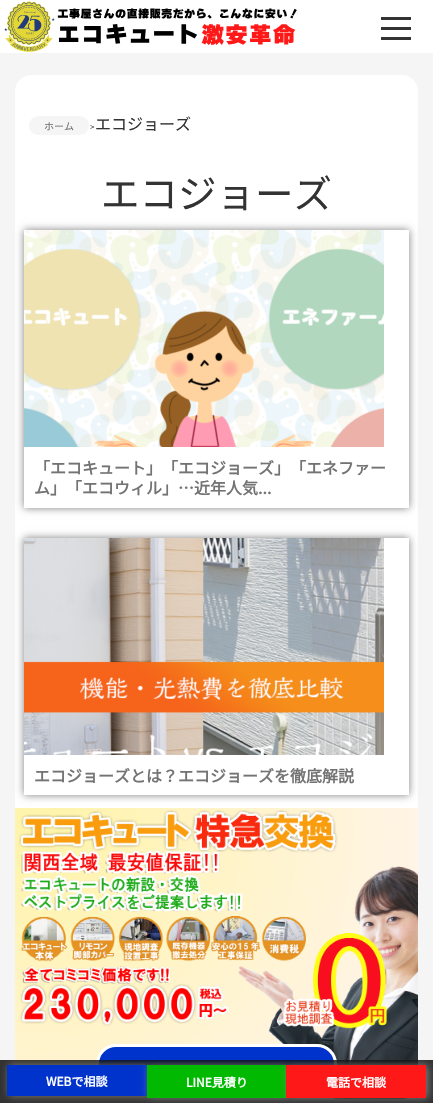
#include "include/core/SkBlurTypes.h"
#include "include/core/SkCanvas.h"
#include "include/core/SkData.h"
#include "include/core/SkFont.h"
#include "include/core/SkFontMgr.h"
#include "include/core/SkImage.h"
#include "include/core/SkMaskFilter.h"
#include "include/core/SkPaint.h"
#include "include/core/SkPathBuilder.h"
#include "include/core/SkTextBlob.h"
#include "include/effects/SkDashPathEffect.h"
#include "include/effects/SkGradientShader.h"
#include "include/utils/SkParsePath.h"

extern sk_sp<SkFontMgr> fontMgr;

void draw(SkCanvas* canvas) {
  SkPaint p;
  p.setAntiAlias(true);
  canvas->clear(SK_ColorWHITE);
  canvas->drawImageRect(SkImages::DeferredFromEncodedData(SkData::MakeFromFileName("images/1.png")), SkRect::MakeLTRB(4, 1, 297, 52), SkSamplingOptions());
  p.setColor(SkColorSetRGB(51, 51, 51));
  canvas->drawRect(SkRect::MakeLTRB(381, 17, 411, 20), p);
  canvas->drawRect(SkRect::MakeLTRB(381, 27, 411, 30), p);
  canvas->drawRect(SkRect::MakeLTRB(381, 37, 411, 40), p);
  p.setColor(SkColorSetRGB(245, 245, 245));
  canvas->drawRect(SkRect::MakeLTRB(0, 53, 433, 1103), p);
  p.setColor(SK_ColorWHITE);
  canvas->drawRoundRect(SkRect::MakeLTRB(15, 75, 418, 1099), 16, 16, p);
  p.setColor(SkColorSetRGB(245, 245, 245));
  canvas->drawRoundRect(SkRect::MakeLTRB(29, 116, 89, 135), 9.5f, 9.5f, p);
  canvas->save();
  canvas->clipPath(SkPathBuilder(SkPathFillType::kEvenOdd).moveTo(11, 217).lineTo(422, 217).lineTo(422, 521).lineTo(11, 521).close().moveTo(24, 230).lineTo(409, 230).lineTo(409, 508).lineTo(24, 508).close().detach(), true);
  p.setColor(SkColorSetRGB(128, 128, 128));
  p.setMaskFilter(SkMaskFilter::MakeBlur(kNormal_SkBlurStyle, 4));
  canvas->drawRect(SkRect::MakeLTRB(24, 230, 409, 508), p);
  p.setMaskFilter(nullptr);
  canvas->restore();
  canvas->drawImageRect(SkImages::DeferredFromEncodedData(SkData::MakeFromFileName("images/2.png")), SkRect::MakeLTRB(24, 230, 384, 447), SkSamplingOptions());
  canvas->save();
  canvas->clipPath(SkPathBuilder(SkPathFillType::kEvenOdd).moveTo(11, 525).lineTo(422, 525).lineTo(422, 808).lineTo(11, 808).close().moveTo(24, 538).lineTo(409, 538).lineTo(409, 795).lineTo(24, 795).close().detach(), true);
  p.setMaskFilter(SkMaskFilter::MakeBlur(kNormal_SkBlurStyle, 4));
  canvas->drawRect(SkRect::MakeLTRB(24, 538, 409, 795), p);
  p.setMaskFilter(nullptr);
  canvas->restore();
  canvas->drawImageRect(SkImages::DeferredFromEncodedData(SkData::MakeFromFileName("images/3.png")), SkRect::MakeLTRB(24, 538, 384, 755), SkSamplingOptions());
  {
    const SkColor colors[] = {SkColorSetRGB(255, 244, 169), SkColorSetRGB(255, 244, 234)};
    const float stops[] = {0, 1};
    p.setShader(SkGradientShader::MakeRadial({42, 832}, 401, colors, stops, 2, SkTileMode::kClamp));
    p.setAlpha(255);
  }
  canvas->drawPath(SkPathBuilder().moveTo(15, 808).lineTo(418, 808).lineTo(418, 1083).cubicTo(418, 1092, 411, 1099, 402, 1099).lineTo(31, 1099).cubicTo(22, 1099, 15, 1092, 15, 1083).close().detach(), p);
  canvas->drawImageRect(SkImages::DeferredFromEncodedData(SkData::MakeFromFileName("images/5.png")), SkRect::MakeLTRB(238, 866, 418, 1099), SkSamplingOptions());
  canvas->drawImageRect(SkImages::DeferredFromEncodedData(SkData::MakeFromFileName("images/4.png")), SkRect::MakeLTRB(19, 810, 387, 1029), SkSamplingOptions());
  p.setShader(nullptr);
  p.setColor(SkColorSetRGB(0, 51, 204));
  canvas->drawRoundRect(SkRect::MakeLTRB(97.5f, 1045.5f, 335.5f, 1082.5f), 18.5f, 18.5f, p);
  p.setStyle(SkPaint::kStroke_Style);
  p.setStrokeWidth(3);
  p.setColor(SK_ColorWHITE);
  canvas->drawRoundRect(SkRect::MakeLTRB(97.5f, 1045.5f, 335.5f, 1082.5f), 18.5f, 18.5f, p);
  p.setStyle(SkPaint::kFill_Style);
  p.setColor(SkColorSetARGB(204, 0, 0, 0));
  canvas->drawRect(SkRect::MakeLTRB(0, 1060, 433, 1103), p);
  canvas->save();
  canvas->clipRect(SkRect::MakeLTRB(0, 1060, 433, 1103));
  p.setColor(SkColorSetRGB(128, 128, 128));
  p.setMaskFilter(SkMaskFilter::MakeBlur(kNormal_SkBlurStyle, 4));
  canvas->drawRect(SkRect::MakeLTRB(9, 1065, 149, 1096), p);
  p.setMaskFilter(nullptr);
  canvas->restore();
  p.setColor(SkColorSetRGB(0, 51, 204));
  canvas->drawRect(SkRect::MakeLTRB(7, 1065, 147, 1096), p);
  canvas->save();
  canvas->clipRect(SkRect::MakeLTRB(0, 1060, 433, 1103));
  p.setColor(SkColorSetRGB(128, 128, 128));
  p.setMaskFilter(SkMaskFilter::MakeBlur(kNormal_SkBlurStyle, 4));
  canvas->drawRect(SkRect::MakeLTRB(149, 1065, 288, 1098), p);
  p.setMaskFilter(nullptr);
  canvas->restore();
  p.setColor(SkColorSetRGB(0, 185, 0));
  canvas->drawRect(SkRect::MakeLTRB(147, 1065, 286, 1098), p);
  canvas->save();
  canvas->clipRect(SkRect::MakeLTRB(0, 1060, 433, 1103));
  p.setColor(SkColorSetRGB(128, 128, 128));
  p.setMaskFilter(SkMaskFilter::MakeBlur(kNormal_SkBlurStyle, 4));
  canvas->drawRect(SkRect::MakeLTRB(288, 1065, 428, 1098), p);
  p.setMaskFilter(nullptr);
  canvas->restore();
  p.setColor(SkColorSetRGB(255, 24, 24));
  canvas->drawRect(SkRect::MakeLTRB(286, 1065, 426, 1098), p);
  SkFont font1(fontMgr->matchFamilyStyle("Noto Sans JP", SkFontStyle(100, SkFontStyle::kNormal_Width, SkFontStyle::kUpright_Slant)), 10);
  font1.setSubpixel(true);
  p.setColor(SkColorSetRGB(115, 115, 115));
  canvas->drawString("ホーム", 44, 130, font1, p);
  SkFont font2(fontMgr->matchFamilyStyle("Noto Sans JP", SkFontStyle(100, SkFontStyle::kNormal_Width, SkFontStyle::kUpright_Slant)), 8);
  font2.setSubpixel(true);
  p.setColor(SkColorSetRGB(51, 51, 51));
  canvas->drawString(">", 90, 130, font2, p);
  SkFont font3(fontMgr->matchFamilyStyle("Noto Sans JP", SkFontStyle(100, SkFontStyle::kNormal_Width, SkFontStyle::kUpright_Slant)), 16);
  font3.setSubpixel(true);
  canvas->drawString("エコジョーズ", 95, 130, font3, p);
  SkFont font4(fontMgr->matchFamilyStyle("Noto Sans JP", SkFontStyle(100, SkFontStyle::kNormal_Width, SkFontStyle::kUpright_Slant)), 38.5f);
  font4.setSubpixel(true);
  canvas->drawString("エコジョーズ", 101, 208, font4, p);
  SkFont font5(fontMgr->matchFamilyStyle("Noto Sans JP", SkFontStyle::Bold()), 16);
  font5.setSubpixel(true);
  p.setColor(SkColorSetRGB(115, 115, 115));
  canvas->drawString("「エコキュート」「エコジョーズ」「エネファー", 34, 474, font5, p);
  canvas->drawString("ム」「エコウィル」…近年人気...", 34, 494, font5, p);
  canvas->drawString("エコジョーズとは？エコジョーズを徹底解説", 34, 782, font5, p);
  SkFont font6(fontMgr->matchFamilyStyle("Noto Sans JP", SkFontStyle::Bold()), 12);
  font6.setSubpixel(true);
  p.setColor(SK_ColorWHITE);
  canvas->drawString("WEBで相談", 46, 1086, font6, p);
  canvas->drawString("LINE見積り", 186, 1087, font6, p);
  canvas->drawString("電話で相談", 326, 1087, font6, p);
}
